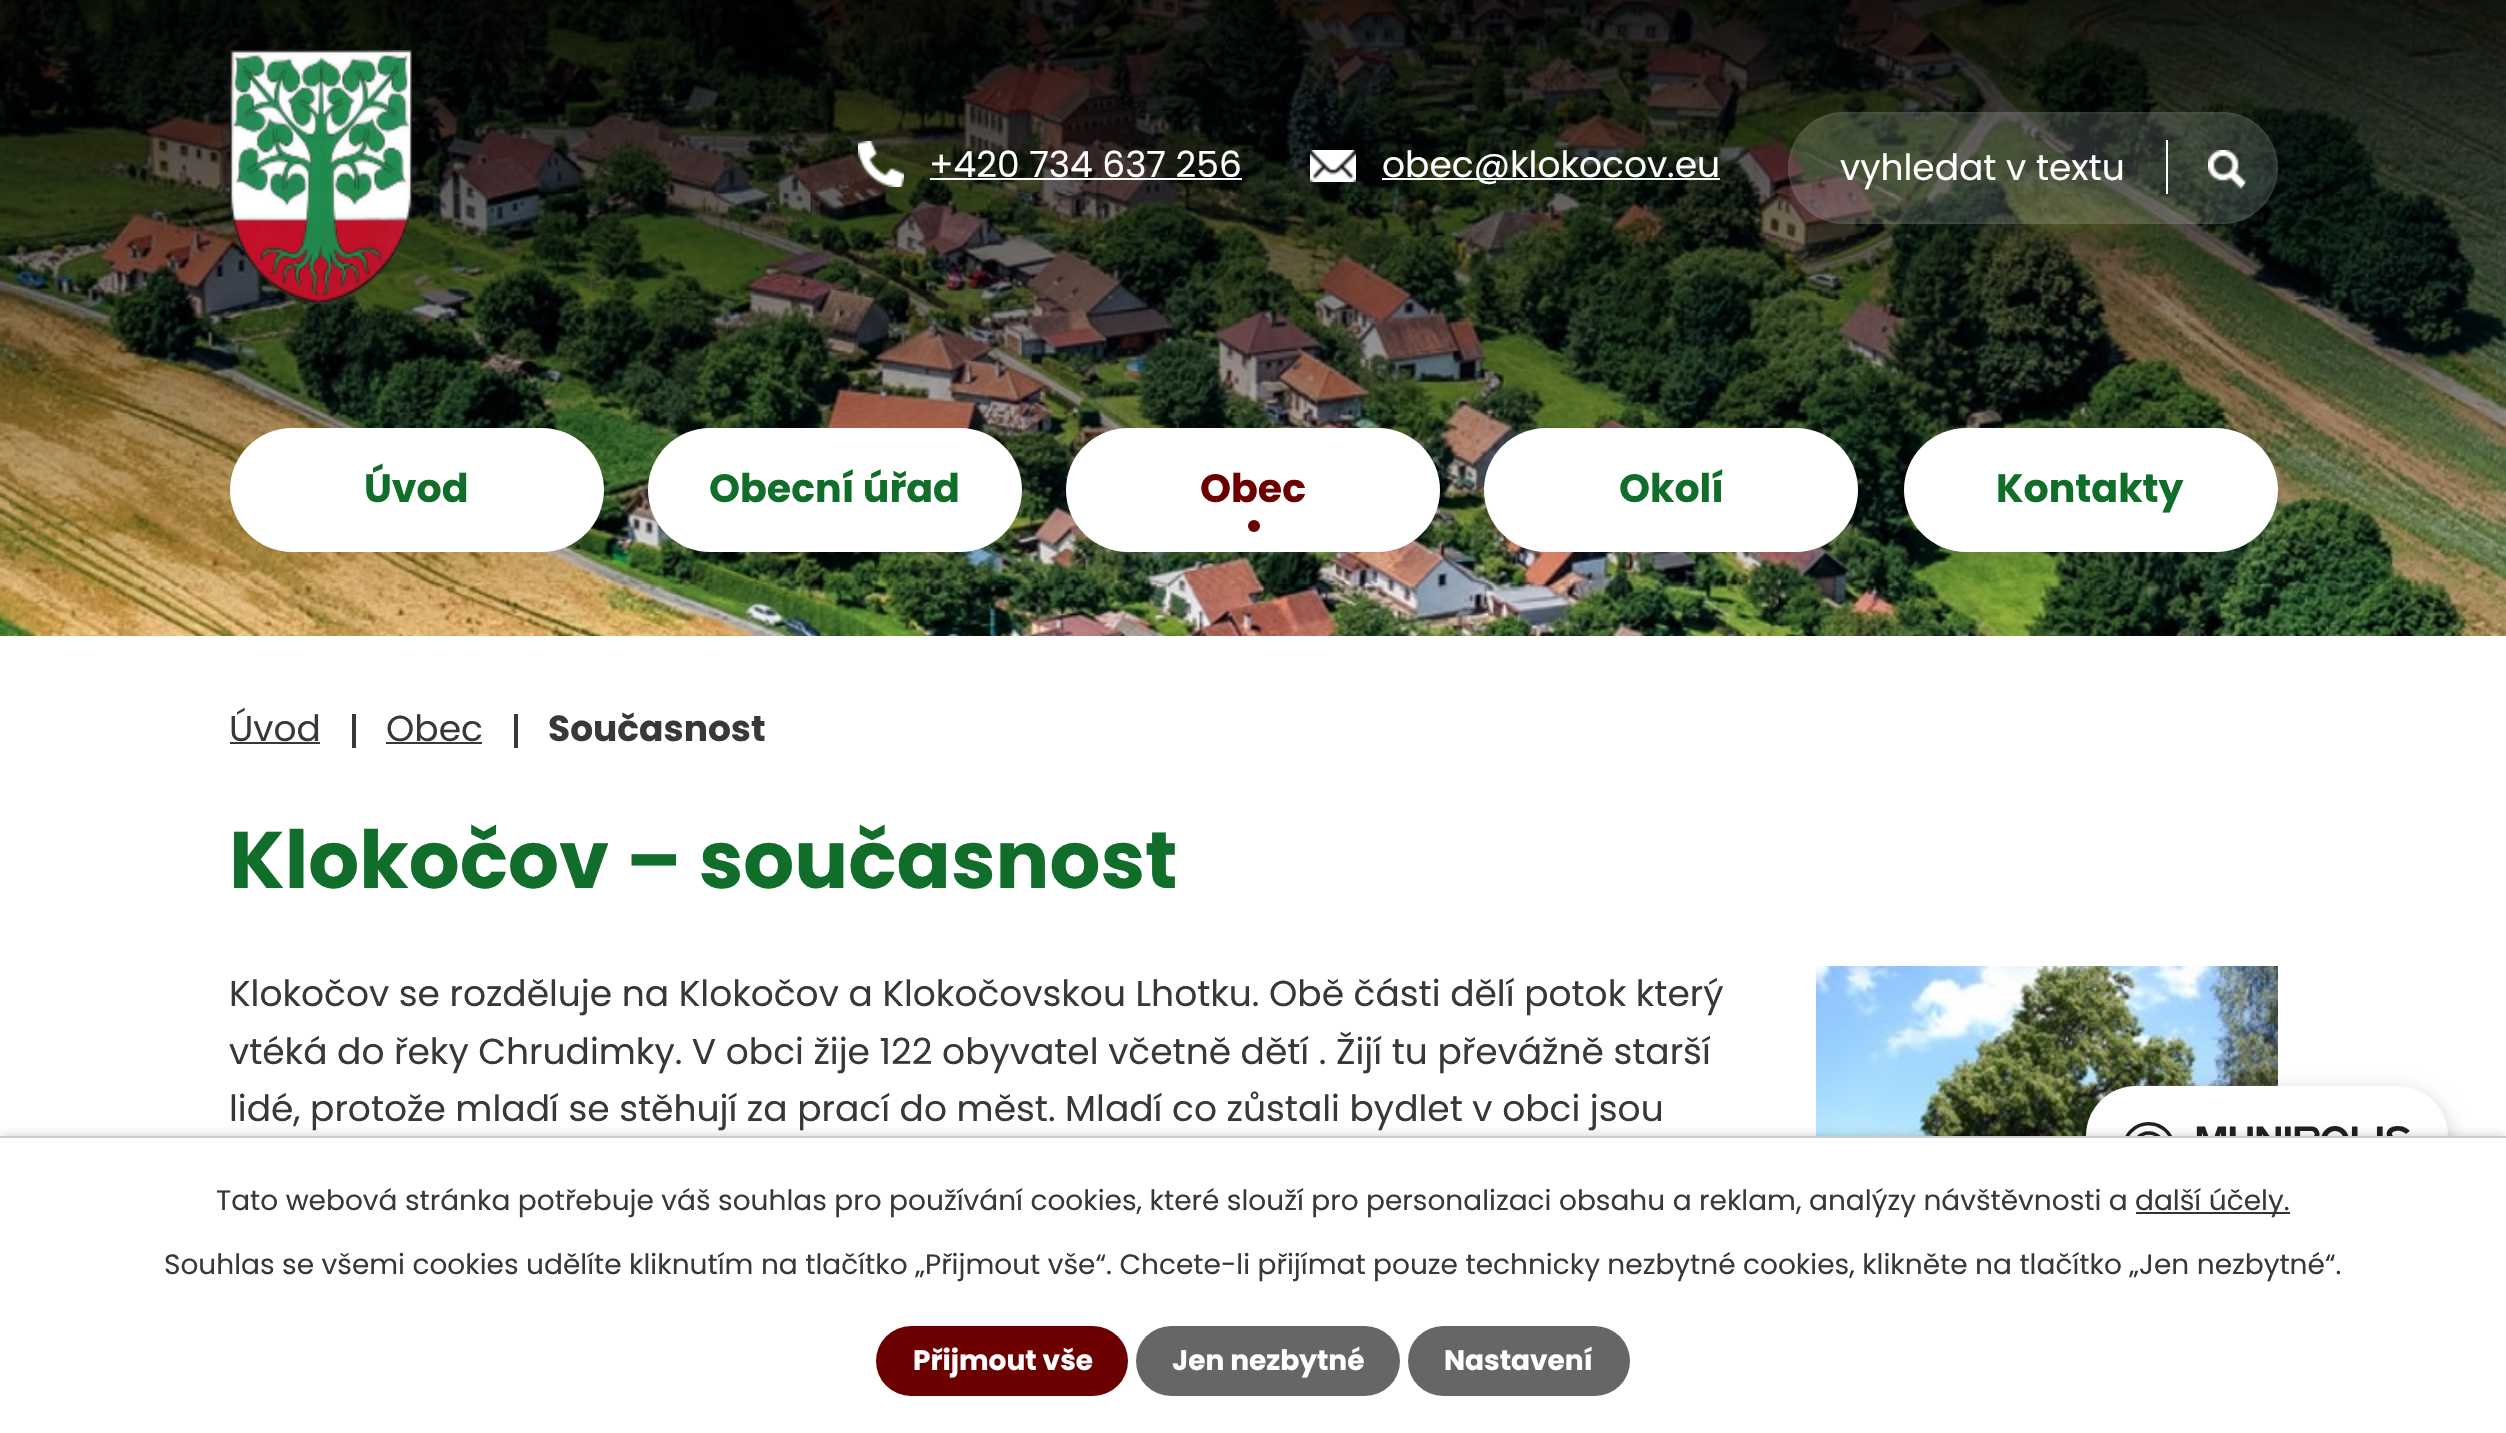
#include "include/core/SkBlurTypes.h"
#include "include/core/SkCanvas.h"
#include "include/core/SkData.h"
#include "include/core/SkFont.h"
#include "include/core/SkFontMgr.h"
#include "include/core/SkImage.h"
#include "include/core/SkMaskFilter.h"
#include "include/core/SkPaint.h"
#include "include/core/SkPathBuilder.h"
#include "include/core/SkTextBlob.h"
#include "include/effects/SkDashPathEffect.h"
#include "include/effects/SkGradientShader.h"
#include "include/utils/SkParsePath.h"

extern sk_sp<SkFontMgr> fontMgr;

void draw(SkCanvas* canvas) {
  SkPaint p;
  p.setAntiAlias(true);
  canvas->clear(SK_ColorWHITE);
  canvas->drawImageRect(SkImages::DeferredFromEncodedData(SkData::MakeFromFileName("images/1.png")), SkRect::MakeLTRB(0, 0, 2506, 636), SkSamplingOptions());
  canvas->drawImageRect(SkImages::DeferredFromEncodedData(SkData::MakeFromFileName("images/2.png")), SkRect::MakeLTRB(230, 50, 412, 304), SkSamplingOptions());
  canvas->drawImageRect(SkImages::DeferredFromEncodedData(SkData::MakeFromFileName("images/3.png")), SkRect::MakeLTRB(858, 141, 904, 187), SkSamplingOptions());
  p.setColor(SK_ColorWHITE);
  canvas->drawRect(SkRect::MakeLTRB(930, 178, 1242, 180), p);
  canvas->drawImageRect(SkImages::DeferredFromEncodedData(SkData::MakeFromFileName("images/4.png")), SkRect::MakeLTRB(1310, 150, 1356, 182), SkSamplingOptions());
  canvas->drawRect(SkRect::MakeLTRB(1382, 178, 1720, 180), p);
  p.setColor(SkColorSetARGB(38, 255, 255, 255));
  canvas->drawRoundRect(SkRect::MakeLTRB(1788, 112, 2278, 224), 56, 56, p);
  p.setStyle(SkPaint::kStroke_Style);
  p.setStrokeWidth(2);
  p.setColor(SkColorSetARGB(38, 112, 112, 112));
  canvas->drawRoundRect(SkRect::MakeLTRB(1789, 113, 2277, 223), 55, 55, p);
  p.setStyle(SkPaint::kFill_Style);
  p.setColor(SK_ColorWHITE);
  canvas->drawRect(SkRect::MakeLTRB(2166, 140, 2168, 194), p);
  canvas->drawImageRect(SkImages::DeferredFromEncodedData(SkData::MakeFromFileName("images/5.png")), SkRect::MakeLTRB(2208, 150, 2246, 189), SkSamplingOptions());
  canvas->drawRoundRect(SkRect::MakeLTRB(230, 428, 604, 552), 62, 62, p);
  canvas->drawRoundRect(SkRect::MakeLTRB(648, 428, 1022, 552), 62, 62, p);
  canvas->drawRoundRect(SkRect::MakeLTRB(1066, 428, 1440, 552), 62, 62, p);
  p.setColor(SkColorSetRGB(108, 0, 0));
  canvas->drawCircle(1254, 526, 6, p);
  p.setColor(SK_ColorWHITE);
  canvas->drawRoundRect(SkRect::MakeLTRB(1484, 428, 1858, 552), 62, 62, p);
  canvas->drawRoundRect(SkRect::MakeLTRB(1904, 428, 2278, 552), 62, 62, p);
  p.setColor(SkColorSetRGB(56, 56, 56));
  canvas->drawRect(SkRect::MakeLTRB(230, 742, 320, 744), p);
  canvas->drawRect(SkRect::MakeLTRB(352, 714, 356, 748), p);
  canvas->drawRect(SkRect::MakeLTRB(386, 742, 482, 744), p);
  canvas->drawRect(SkRect::MakeLTRB(514, 714, 518, 748), p);
  canvas->drawImageRect(SkImages::DeferredFromEncodedData(SkData::MakeFromFileName("images/6.png")), SkRect::MakeLTRB(1816, 966, 2278, 1136), SkSamplingOptions());
  p.setColor(SkColorSetARGB(51, 0, 0, 0));
  p.setMaskFilter(SkMaskFilter::MakeBlur(kNormal_SkBlurStyle, 10));
  canvas->drawRoundRect(SkRect::MakeLTRB(2086, 1092, 2448, 1350), 50, 50, p);
  p.setMaskFilter(nullptr);
  p.setColor(SK_ColorWHITE);
  canvas->drawRoundRect(SkRect::MakeLTRB(2086, 1086, 2448, 1344), 50, 50, p);
  canvas->drawImageRect(SkImages::DeferredFromEncodedData(SkData::MakeFromFileName("images/7.png")), SkRect::MakeLTRB(2125, 1122, 2410, 1136), SkSamplingOptions());
  p.setColor(SkColorSetARGB(51, 0, 0, 0));
  p.setMaskFilter(SkMaskFilter::MakeBlur(kNormal_SkBlurStyle, 5));
  canvas->drawRect(SkRect::MakeLTRB(0, 1136, 2506, 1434), p);
  p.setMaskFilter(nullptr);
  p.setColor(SK_ColorWHITE);
  canvas->drawRect(SkRect::MakeLTRB(0, 1138, 2506, 1433), p);
  p.setColor(SkColorSetRGB(204, 204, 204));
  canvas->drawRect(SkRect::MakeLTRB(0, 1136, 2506, 1138), p);
  p.setColor(SkColorSetRGB(51, 51, 51));
  canvas->drawRect(SkRect::MakeLTRB(2136, 1212, 2290, 1214), p);
  p.setColor(SkColorSetRGB(108, 0, 0));
  canvas->drawRoundRect(SkRect::MakeLTRB(876, 1326, 1128, 1396), 35, 35, p);
  p.setColor(SkColorSetRGB(102, 102, 102));
  canvas->drawRoundRect(SkRect::MakeLTRB(1136, 1326, 1400, 1396), 35, 35, p);
  canvas->drawRoundRect(SkRect::MakeLTRB(1408, 1326, 1630, 1396), 35, 35, p);
  SkFont font1(fontMgr->matchFamilyStyle("Poppins", SkFontStyle::Normal()), 36);
  font1.setSubpixel(true);
  p.setColor(SK_ColorWHITE);
  canvas->drawString("+420 734 637 256", 929, 177, font1, p);
  canvas->drawString("obec@klokocov.eu", 1382, 177, font1, p);
  canvas->drawString("vyhledat v textu", 1840, 180, font1, p);
  SkFont font2(fontMgr->matchFamilyStyle("Poppins", SkFontStyle::Bold()), 39.5f);
  font2.setSubpixel(true);
  p.setColor(SkColorSetRGB(17, 110, 42));
  canvas->drawString("Úvod", 364, 502, font2, p);
  canvas->drawString("Obecní úřad", 709, 502, font2, p);
  p.setColor(SkColorSetRGB(108, 0, 0));
  canvas->drawString("Obec", 1200, 502, font2, p);
  p.setColor(SkColorSetRGB(17, 110, 42));
  canvas->drawString("Okolí", 1619, 502, font2, p);
  canvas->drawString("Kontakty", 1996, 502, font2, p);
  p.setColor(SkColorSetRGB(56, 56, 56));
  canvas->drawString("Úvod", 229, 741, font1, p);
  canvas->drawString("Obec", 386, 741, font1, p);
  SkFont font3(fontMgr->matchFamilyStyle("Poppins", SkFontStyle::Bold()), 36);
  font3.setSubpixel(true);
  canvas->drawString("Současnost", 548, 741, font3, p);
  SkFont font4(fontMgr->matchFamilyStyle("Poppins", SkFontStyle::Bold()), 80);
  font4.setSubpixel(true);
  p.setColor(SkColorSetRGB(17, 110, 42));
  canvas->drawString("Klokočov – současnost", 229, 888, font4, p);
  p.setColor(SkColorSetRGB(56, 56, 56));
  canvas->drawString("Klokočov se rozděluje na Klokočov a Klokočovskou Lhotku. Obě části dělí potok který", 229, 1006, font1, p);
  canvas->drawString("vtéká do řeky Chrudimky. V obci žije 122 obyvatel včetně dětí . Žijí tu převážně starší", 229, 1064, font1, p);
  canvas->drawString("lidé, protože mladí se stěhují za prací do měst. Mladí co zůstali bydlet v obci jsou", 229, 1121, font1, p);
  SkFont font5(fontMgr->matchFamilyStyle("Poppins", SkFontStyle::Normal()), 28);
  font5.setSubpixel(true);
  canvas->drawString("Tato webová stránka potřebuje váš souhlas pro používání cookies, které slouží pro personalizaci obsahu a reklam, analýzy návštěvnosti a", 216, 1210, font5, p);
  canvas->drawString("další účely.", 2135, 1210, font5, p);
  canvas->drawString("Souhlas se všemi cookies udělíte kliknutím na tlačítko „Přijmout vše“. Chcete-li přijímat pouze technicky nezbytné cookies, klikněte na tlačítko „Jen nezbytné“.", 164, 1274, font5, p);
  SkFont font6(fontMgr->matchFamilyStyle("Poppins", SkFontStyle::Bold()), 28);
  font6.setSubpixel(true);
  p.setColor(SK_ColorWHITE);
  canvas->drawString("Přijmout vše", 913, 1370, font6, p);
  canvas->drawString("Jen nezbytné", 1172, 1370, font6, p);
  canvas->drawString("Nastavení", 1444, 1370, font6, p);
}
